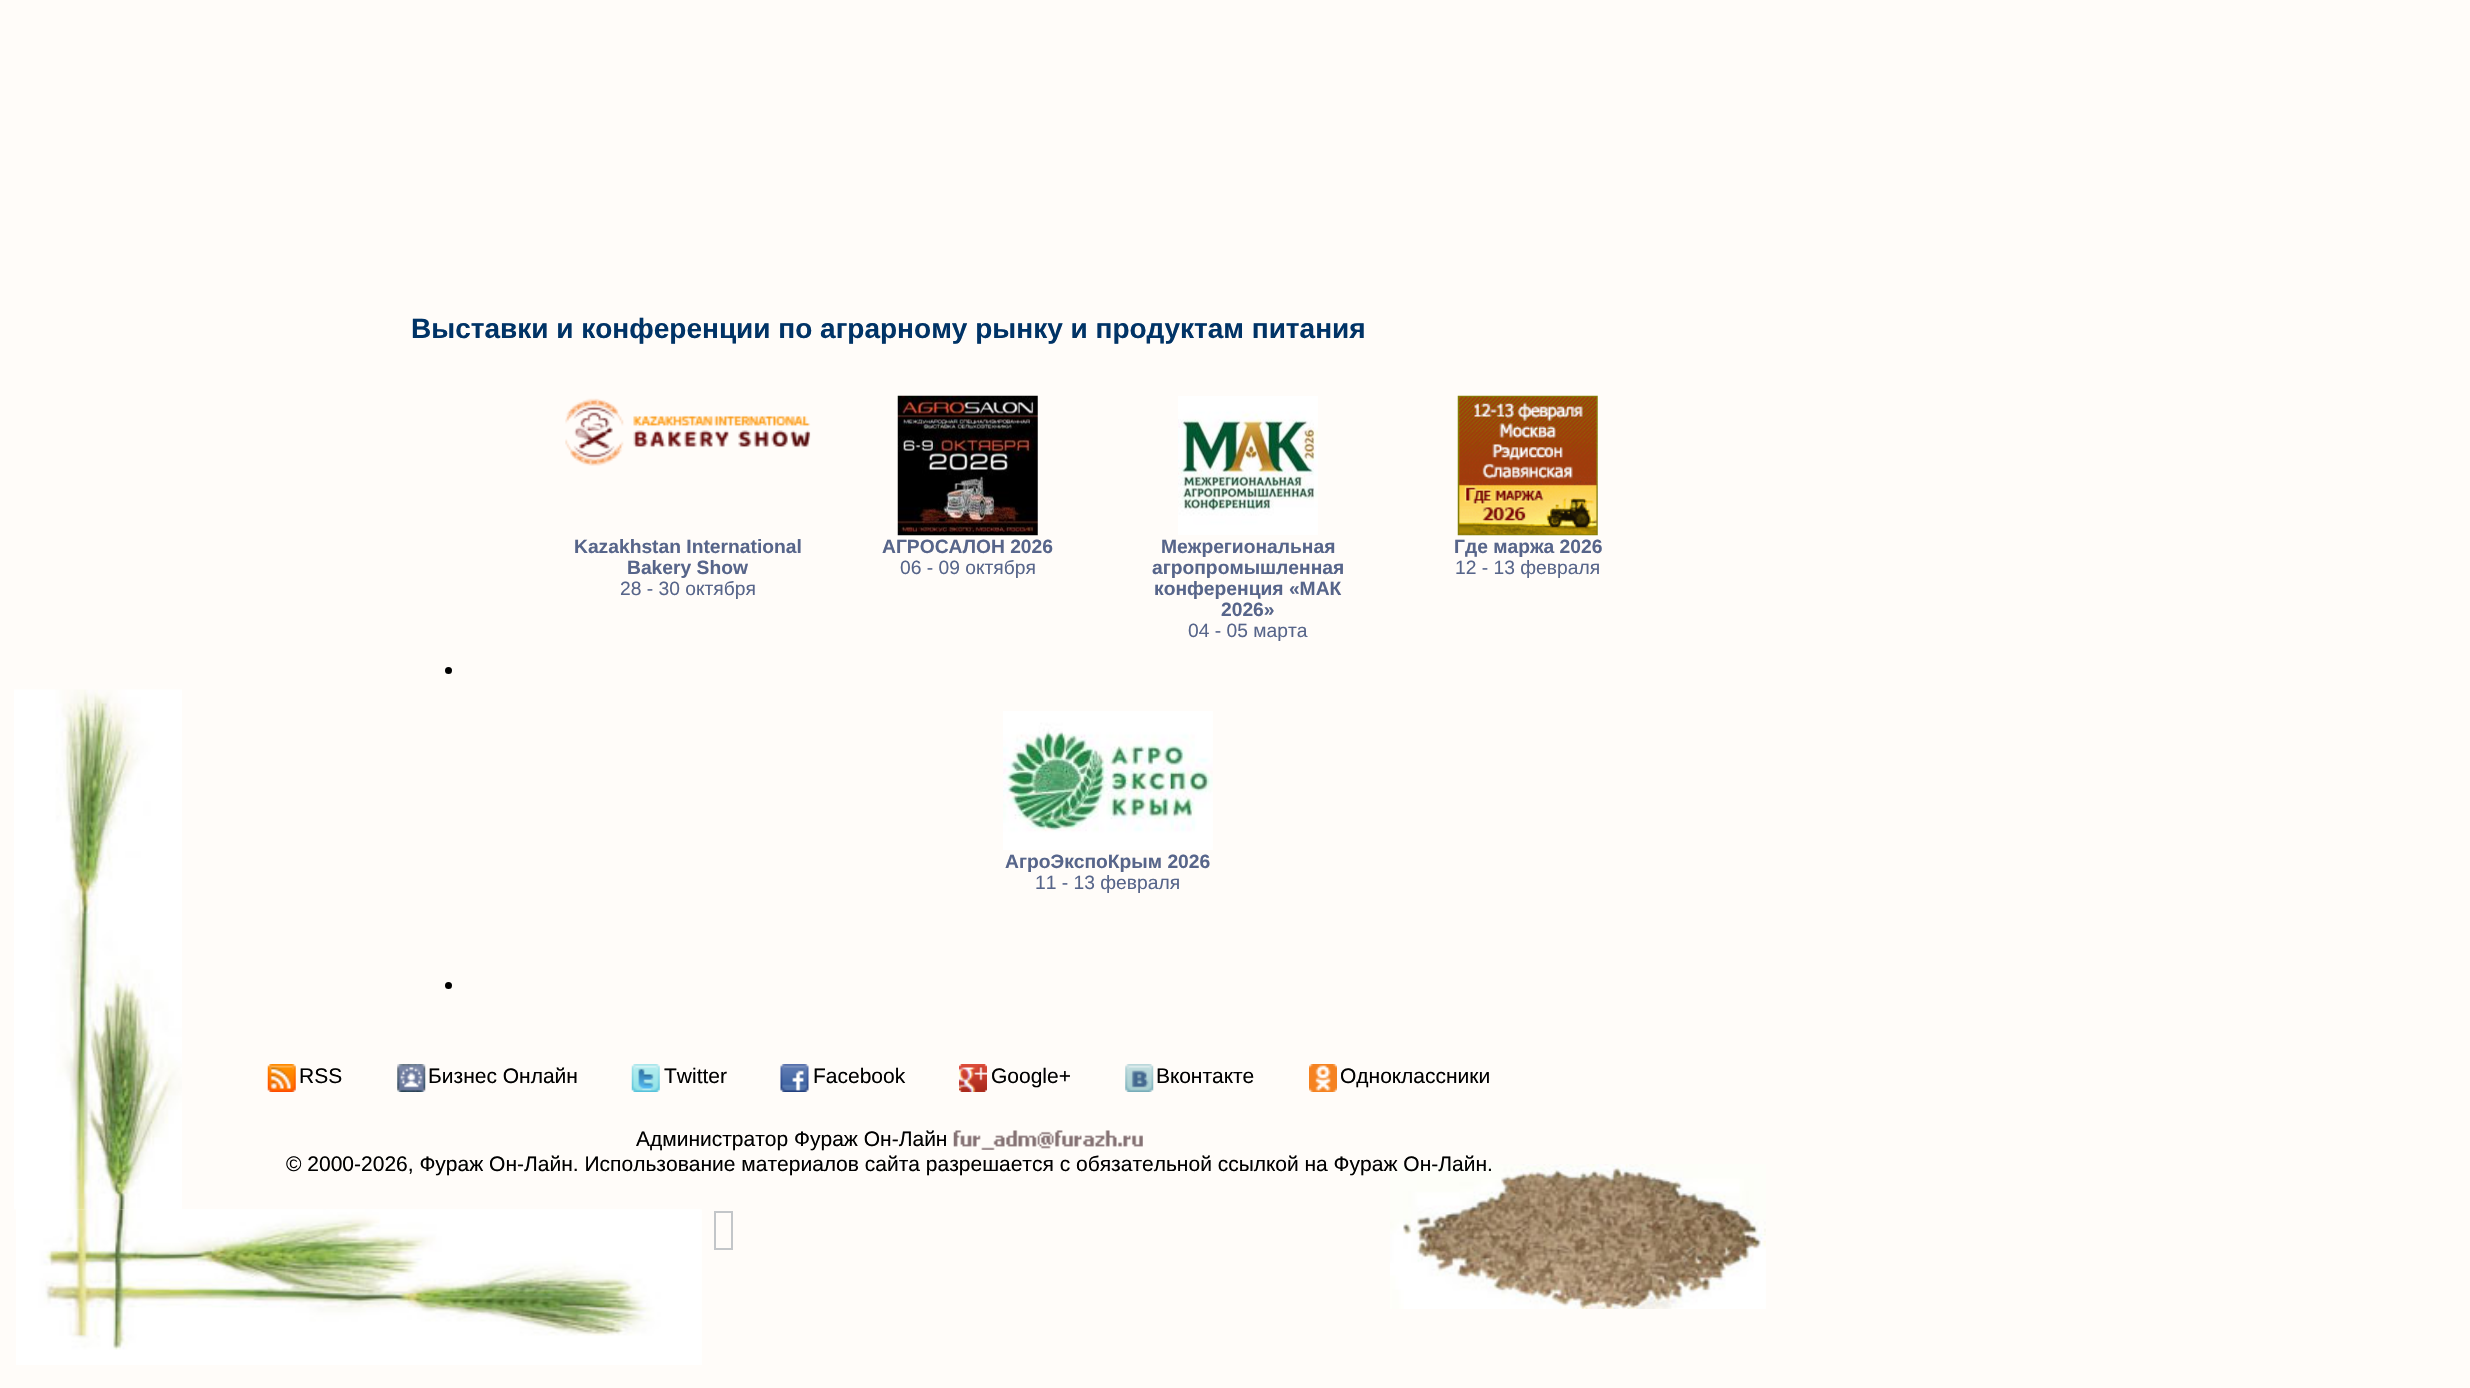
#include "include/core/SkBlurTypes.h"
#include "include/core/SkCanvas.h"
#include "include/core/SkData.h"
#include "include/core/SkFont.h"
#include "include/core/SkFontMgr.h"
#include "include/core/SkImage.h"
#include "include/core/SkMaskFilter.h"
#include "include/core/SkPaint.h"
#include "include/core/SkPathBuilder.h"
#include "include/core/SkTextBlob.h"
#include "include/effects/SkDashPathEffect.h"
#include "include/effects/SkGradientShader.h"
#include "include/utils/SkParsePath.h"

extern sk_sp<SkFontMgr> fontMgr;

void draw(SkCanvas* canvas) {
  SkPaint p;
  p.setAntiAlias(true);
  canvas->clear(SkColorSetRGB(255, 252, 249));
  canvas->drawImageRect(SkImages::DeferredFromEncodedData(SkData::MakeFromFileName("images/1.png")), SkRect::MakeLTRB(565, 398, 811, 466), SkSamplingOptions());
  canvas->drawImageRect(SkImages::DeferredFromEncodedData(SkData::MakeFromFileName("images/2.png")), SkRect::MakeLTRB(897, 395, 1038, 536), SkSamplingOptions());
  canvas->drawImageRect(SkImages::DeferredFromEncodedData(SkData::MakeFromFileName("images/3.png")), SkRect::MakeLTRB(1178, 396, 1318, 535), SkSamplingOptions());
  canvas->drawImageRect(SkImages::DeferredFromEncodedData(SkData::MakeFromFileName("images/4.png")), SkRect::MakeLTRB(1457, 395, 1598, 536), SkSamplingOptions());
  p.setColor(SK_ColorBLACK);
  canvas->drawCircle(448.5f, 670.5f, 3.5f, p);
  canvas->drawImageRect(SkImages::DeferredFromEncodedData(SkData::MakeFromFileName("images/5.png")), SkRect::MakeLTRB(1003, 711, 1213, 850), SkSamplingOptions());
  canvas->drawCircle(448.5f, 985.5f, 3.5f, p);
  canvas->drawImageRect(SkImages::DeferredFromEncodedData(SkData::MakeFromFileName("images/6.png")), SkRect::MakeLTRB(14, 689, 182, 1210), SkSamplingOptions());
  canvas->drawImageRect(SkImages::DeferredFromEncodedData(SkData::MakeFromFileName("images/7.png")), SkRect::MakeLTRB(16, 1209, 702, 1365), SkSamplingOptions());
  canvas->drawImageRect(SkImages::DeferredFromEncodedData(SkData::MakeFromFileName("images/8.png")), SkRect::MakeLTRB(1390, 1164, 1766, 1309), SkSamplingOptions());
  canvas->drawImageRect(SkImages::DeferredFromEncodedData(SkData::MakeFromFileName("images/9.png")), SkRect::MakeLTRB(267, 1064, 296, 1092), SkSamplingOptions());
  canvas->drawImageRect(SkImages::DeferredFromEncodedData(SkData::MakeFromFileName("images/10.png")), SkRect::MakeLTRB(397, 1064, 426, 1092), SkSamplingOptions());
  canvas->drawImageRect(SkImages::DeferredFromEncodedData(SkData::MakeFromFileName("images/11.png")), SkRect::MakeLTRB(631, 1064, 660, 1092), SkSamplingOptions());
  canvas->drawImageRect(SkImages::DeferredFromEncodedData(SkData::MakeFromFileName("images/12.png")), SkRect::MakeLTRB(780, 1064, 809, 1092), SkSamplingOptions());
  canvas->drawImageRect(SkImages::DeferredFromEncodedData(SkData::MakeFromFileName("images/13.png")), SkRect::MakeLTRB(959, 1064, 987, 1092), SkSamplingOptions());
  canvas->drawImageRect(SkImages::DeferredFromEncodedData(SkData::MakeFromFileName("images/14.png")), SkRect::MakeLTRB(1125, 1064, 1154, 1092), SkSamplingOptions());
  canvas->drawImageRect(SkImages::DeferredFromEncodedData(SkData::MakeFromFileName("images/15.png")), SkRect::MakeLTRB(1309, 1064, 1337, 1092), SkSamplingOptions());
  canvas->drawImageRect(SkImages::DeferredFromEncodedData(SkData::MakeFromFileName("images/16.png")), SkRect::MakeLTRB(953, 1130, 1143, 1150), SkSamplingOptions());
  p.setStyle(SkPaint::kStroke_Style);
  p.setStrokeWidth(2);
  p.setColor(SkColorSetRGB(195, 198, 201));
  canvas->drawRect(SkRect::MakeLTRB(715, 1212, 732, 1249), p);
  SkFont font1(fontMgr->matchFamilyStyle("Liberation Sans", SkFontStyle::Bold()), 28);
  font1.setSubpixel(true);
  p.setStyle(SkPaint::kFill_Style);
  p.setColor(SkColorSetRGB(0, 51, 102));
  canvas->drawString("Выставки и конференции по аграрному рынку и продуктам питания", 411, 338, font1, p);
  SkFont font2(fontMgr->matchFamilyStyle("Liberation Sans", SkFontStyle::Bold()), 19.25f);
  font2.setSubpixel(true);
  p.setColor(SkColorSetRGB(87, 101, 138));
  canvas->drawString("Kazakhstan International", 574, 553, font2, p);
  canvas->drawString("Bakery Show", 627, 574, font2, p);
  SkFont font3(fontMgr->matchFamilyStyle("Liberation Sans", SkFontStyle::Normal()), 19.25f);
  font3.setSubpixel(true);
  canvas->drawString("28 - 30 октября", 620, 595, font3, p);
  canvas->drawString("АГРОСАЛОН 2026", 882, 553, font2, p);
  canvas->drawString("06 - 09 октября", 900, 574, font3, p);
  canvas->drawString("Межрегиональная", 1161, 553, font2, p);
  canvas->drawString("агропромышленная", 1152, 574, font2, p);
  canvas->drawString("конференция «МАК", 1154, 595, font2, p);
  canvas->drawString("2026»", 1221, 616, font2, p);
  canvas->drawString("04 - 05 марта", 1188, 637, font3, p);
  canvas->drawString("Где маржа 2026", 1454, 553, font2, p);
  canvas->drawString("12 - 13 февраля", 1455, 574, font3, p);
  canvas->drawString("АгроЭкспоКрым 2026", 1005, 868, font2, p);
  canvas->drawString("11 - 13 февраля", 1035, 889, font3, p);
  SkFont font4(fontMgr->matchFamilyStyle("Liberation Sans", SkFontStyle::Normal()), 21);
  font4.setSubpixel(true);
  p.setColor(SK_ColorBLACK);
  canvas->drawString("RSS", 299, 1083, font4, p);
  canvas->drawString("Бизнес Онлайн", 428, 1083, font4, p);
  canvas->drawString("Twitter", 664, 1083, font4, p);
  canvas->drawString("Facebook", 813, 1083, font4, p);
  canvas->drawString("Google+", 991, 1083, font4, p);
  canvas->drawString("Вконтакте", 1156, 1083, font4, p);
  canvas->drawString("Одноклассники", 1340, 1083, font4, p);
  canvas->drawString("Администратор Фураж Он-Лайн", 636, 1146, font4, p);
  canvas->drawString("© 2000-2026, Фураж Он-Лайн. Использование материалов сайта разрешается с обязательной ссылкой на Фураж Он-Лайн.", 286, 1171, font4, p);
}
